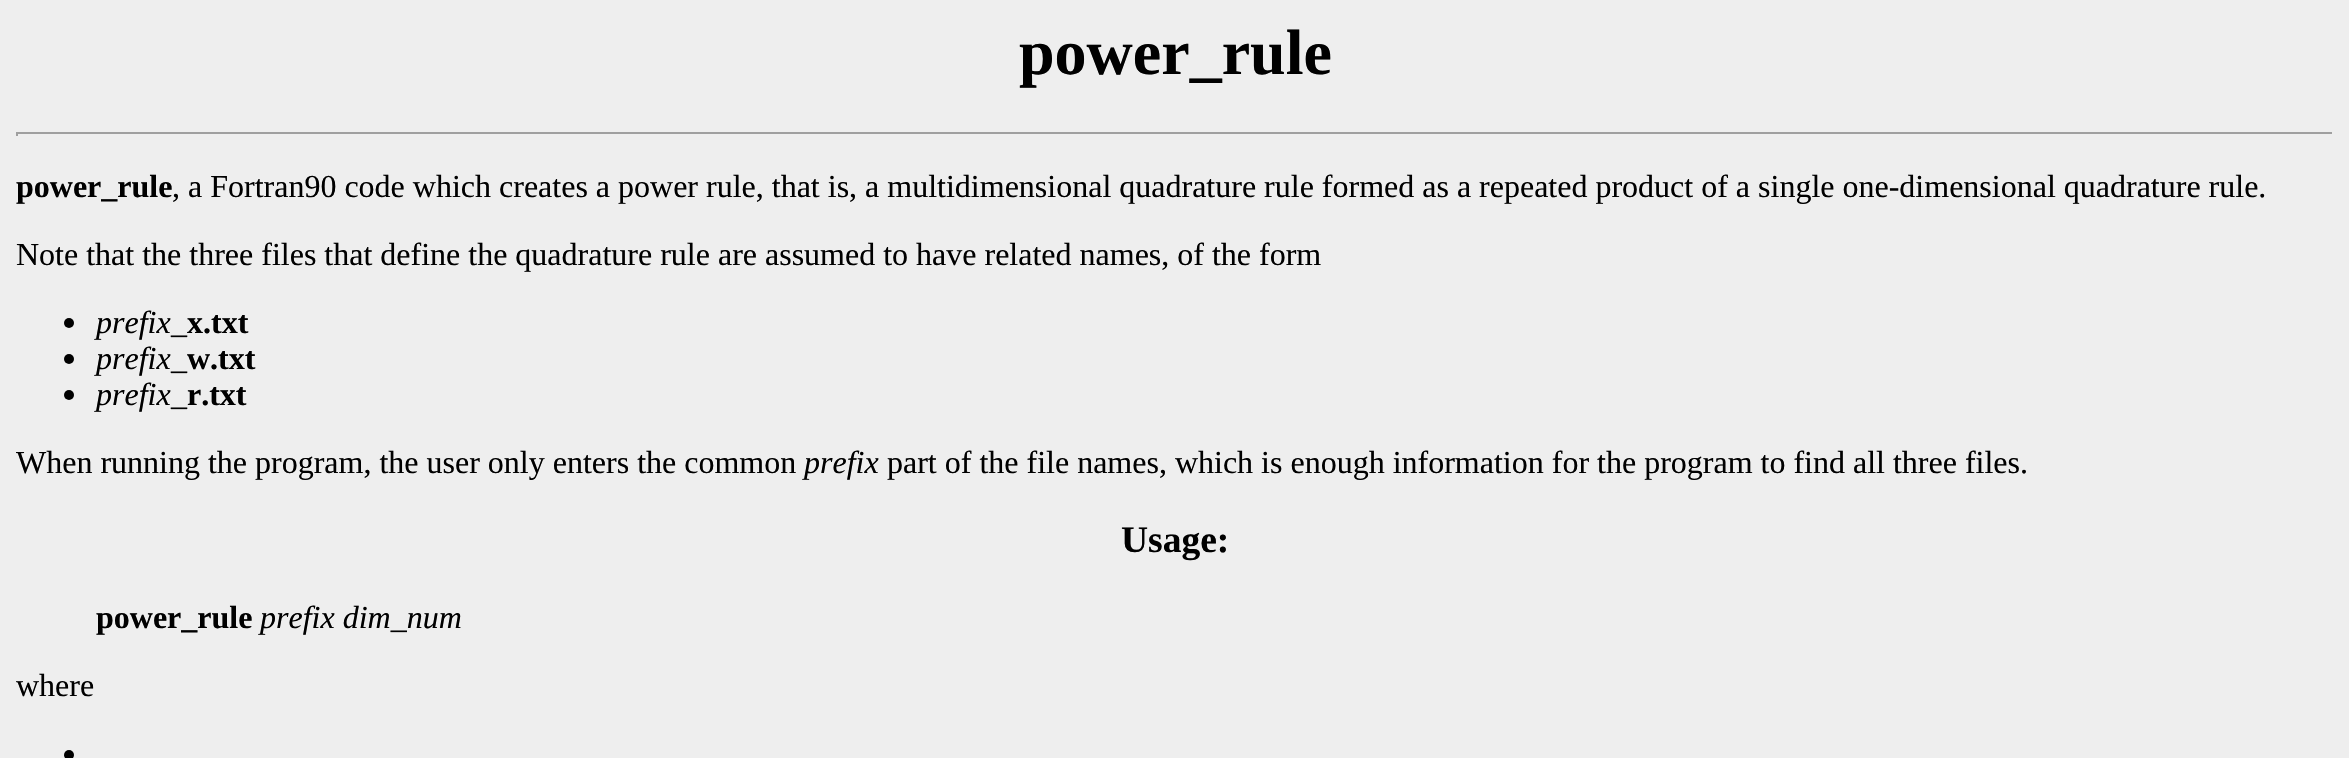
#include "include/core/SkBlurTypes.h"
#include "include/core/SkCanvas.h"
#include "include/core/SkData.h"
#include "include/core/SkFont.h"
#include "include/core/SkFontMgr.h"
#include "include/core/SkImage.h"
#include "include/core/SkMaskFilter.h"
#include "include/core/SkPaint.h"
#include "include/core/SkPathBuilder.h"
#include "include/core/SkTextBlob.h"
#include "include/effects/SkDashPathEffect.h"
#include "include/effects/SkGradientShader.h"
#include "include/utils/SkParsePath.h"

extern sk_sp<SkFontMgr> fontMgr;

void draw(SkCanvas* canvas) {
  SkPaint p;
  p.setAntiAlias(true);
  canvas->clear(SkColorSetRGB(238, 238, 238));
  p.setColor(SkColorSetRGB(159, 159, 159));
  canvas->drawRect(SkRect::MakeLTRB(16, 132, 2334, 134), p);
  p.setColor(SkColorSetRGB(238, 238, 238));
  canvas->drawRect(SkRect::MakeLTRB(2332, 132, 2334, 136), p);
  p.setColor(SkColorSetRGB(159, 159, 159));
  canvas->drawRect(SkRect::MakeLTRB(16, 132, 18, 136), p);
  p.setColor(SK_ColorBLACK);
  canvas->drawCircle(69, 323, 5, p);
  canvas->drawCircle(69, 359, 5, p);
  canvas->drawCircle(69, 395, 5, p);
  canvas->drawCircle(69, 755, 5, p);
  SkFont font1(fontMgr->matchFamilyStyle("Liberation Serif", SkFontStyle::Bold()), 64);
  font1.setSubpixel(true);
  canvas->drawString("power_rule", 1019, 74, font1, p);
  SkFont font2(fontMgr->matchFamilyStyle("Liberation Serif", SkFontStyle::Bold()), 32);
  font2.setSubpixel(true);
  canvas->drawString("power_rule", 16, 197, font2, p);
  SkFont font3(fontMgr->matchFamilyStyle("Liberation Serif", SkFontStyle::Normal()), 32);
  font3.setSubpixel(true);
  canvas->drawString(", a Fortran90 code which creates a power rule, that is, a multidimensional quadrature rule formed as a repeated product of a single one-dimensional quadrature rule.", 172, 197, font3, p);
  canvas->drawString("Note that the three files that define the quadrature rule are assumed to have related names, of the form", 16, 265, font3, p);
  SkFont font4(fontMgr->matchFamilyStyle("Liberation Serif", SkFontStyle::Italic()), 32);
  font4.setSubpixel(true);
  canvas->drawString("prefix", 96, 333, font4, p);
  canvas->drawString("x.txt", 187, 333, font2, p);
  canvas->drawString("_", 171, 333, font3, p);
  canvas->drawString("prefix", 96, 369, font4, p);
  canvas->drawString("w.txt", 187, 369, font2, p);
  canvas->drawString("_", 171, 369, font3, p);
  canvas->drawString("prefix", 96, 405, font4, p);
  canvas->drawString("r.txt", 187, 405, font2, p);
  canvas->drawString("_", 171, 405, font3, p);
  canvas->drawString("When running the program, the user only enters the common", 16, 473, font3, p);
  canvas->drawString("prefix", 804, 473, font4, p);
  canvas->drawString("part of the file names, which is enough information for the program to find all three files.", 887, 473, font3, p);
  SkFont font5(fontMgr->matchFamilyStyle("Liberation Serif", SkFontStyle::Bold()), 37.5f);
  font5.setSubpixel(true);
  canvas->drawString("Usage:", 1121, 552, font5, p);
  canvas->drawString("power_rule", 96, 628, font2, p);
  canvas->drawString("prefix dim_num", 260, 628, font4, p);
  canvas->drawString("where", 16, 696, font3, p);
}
